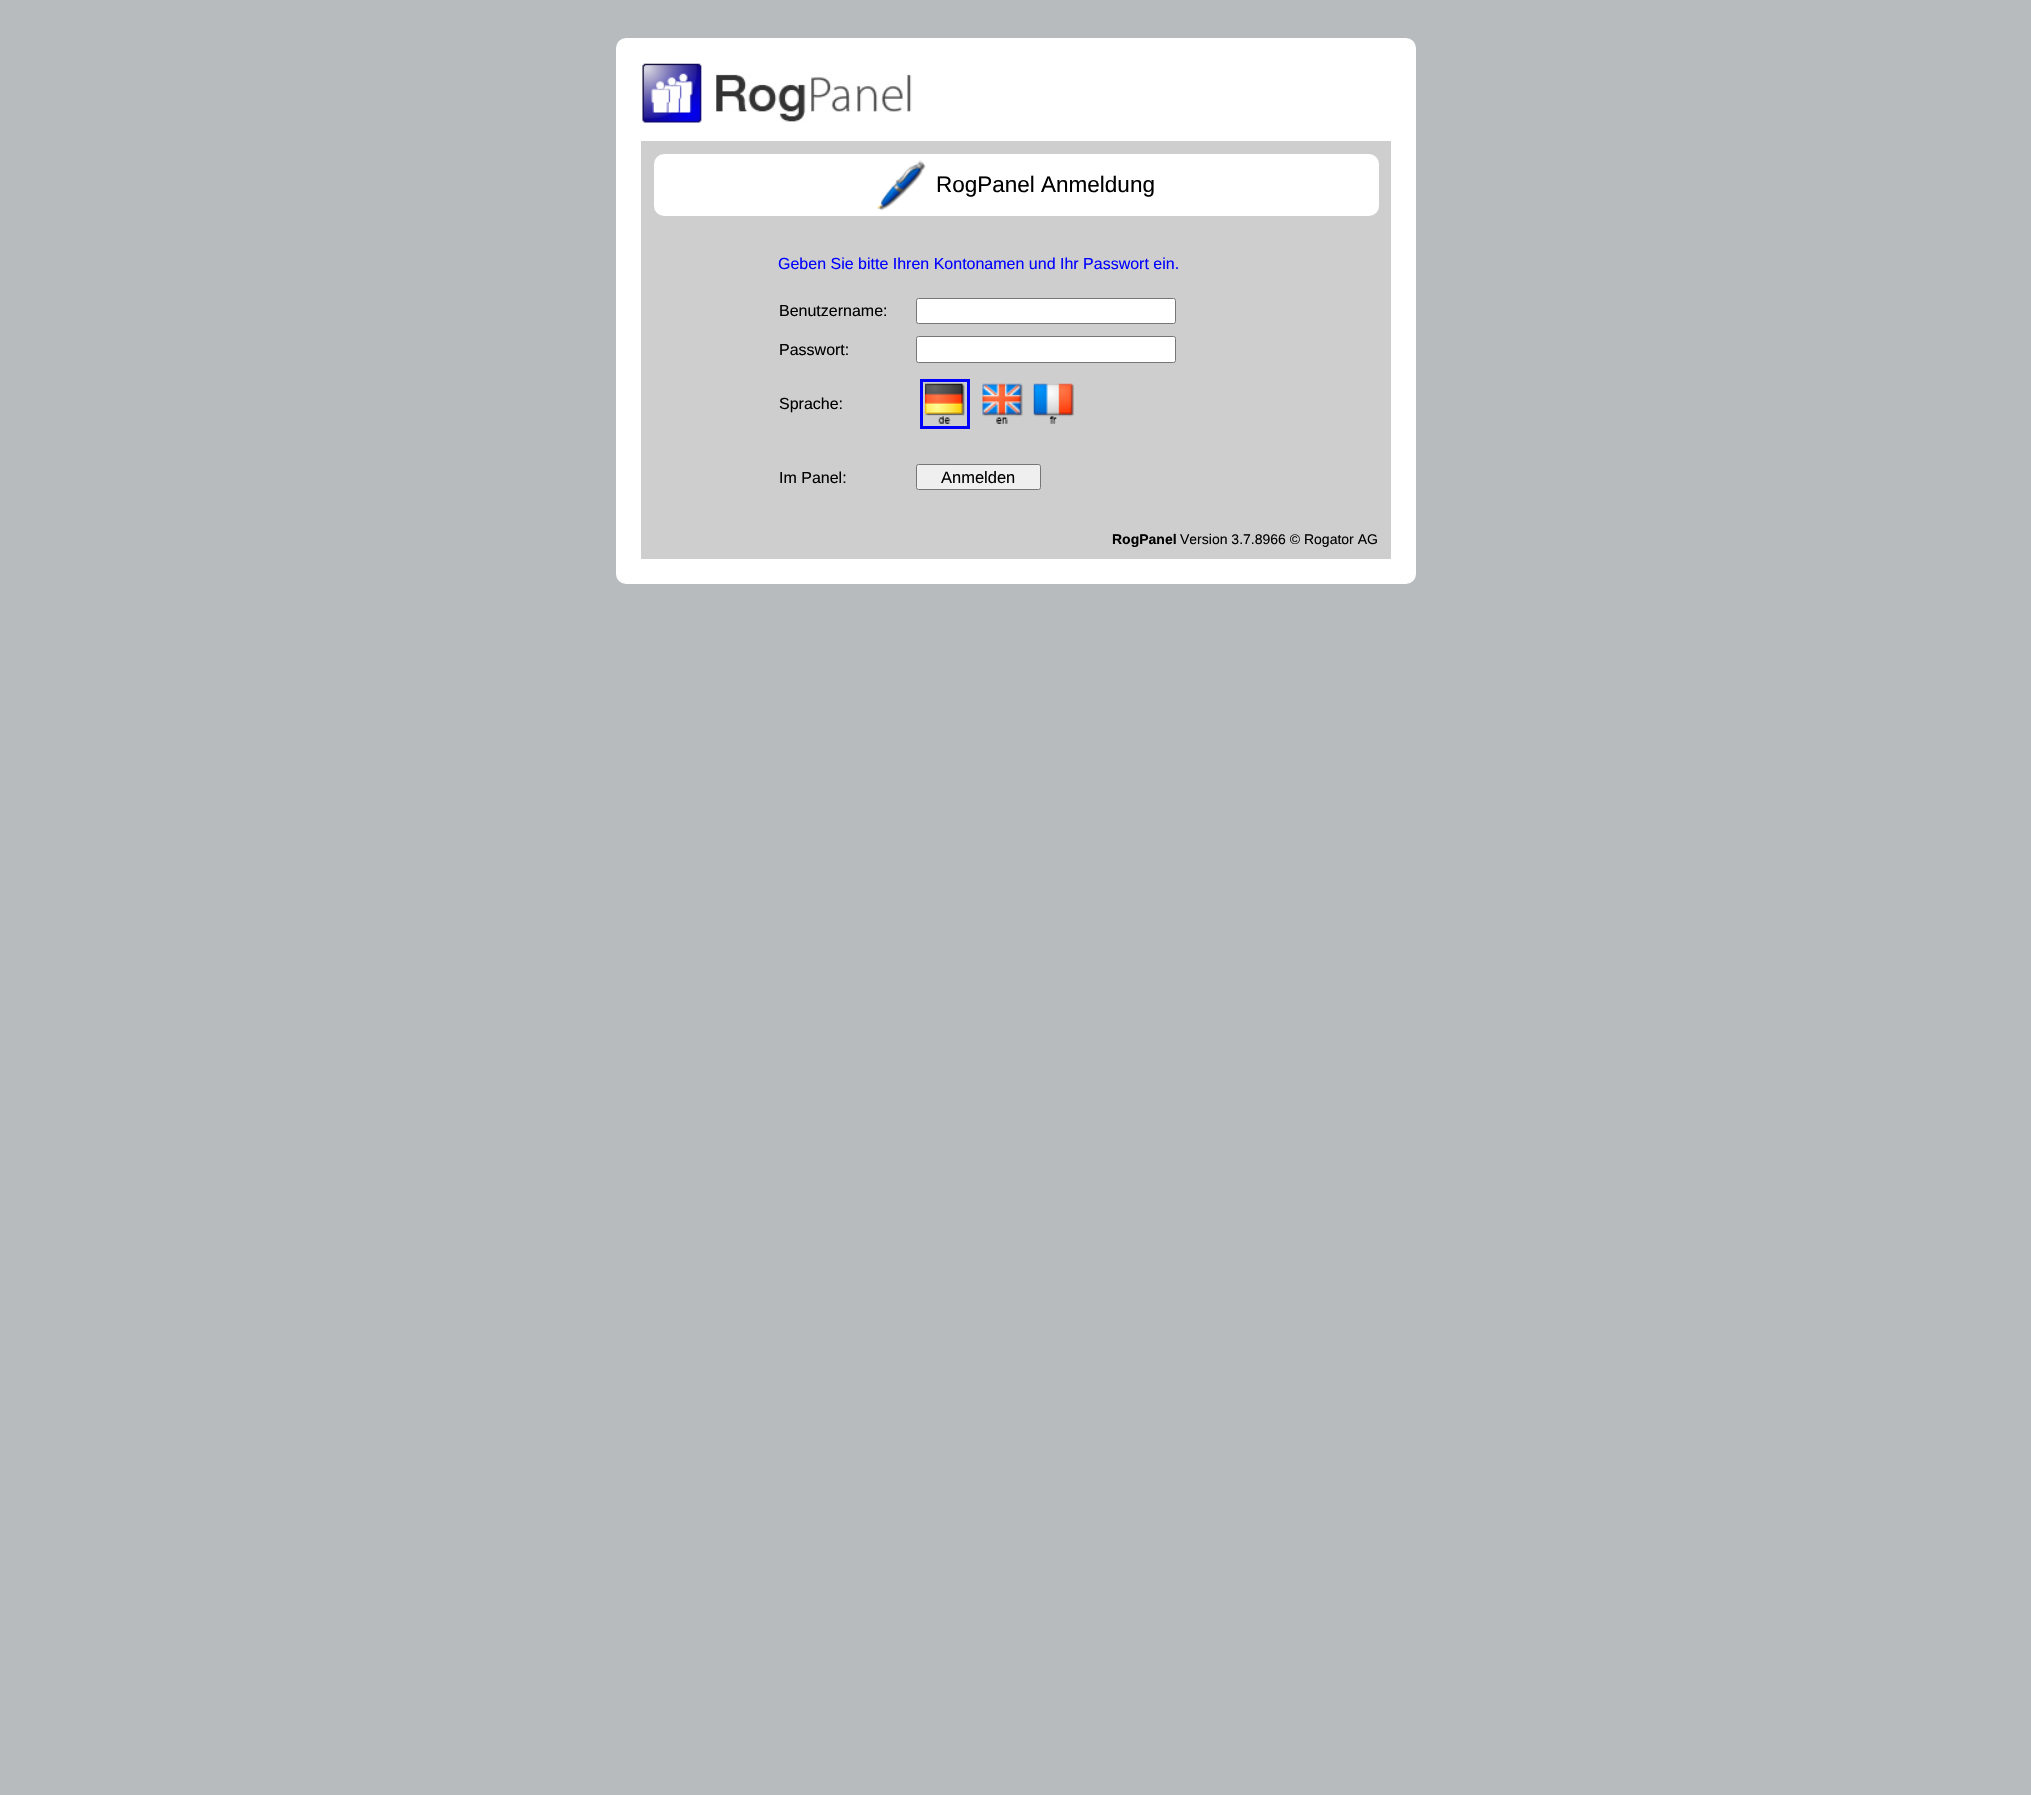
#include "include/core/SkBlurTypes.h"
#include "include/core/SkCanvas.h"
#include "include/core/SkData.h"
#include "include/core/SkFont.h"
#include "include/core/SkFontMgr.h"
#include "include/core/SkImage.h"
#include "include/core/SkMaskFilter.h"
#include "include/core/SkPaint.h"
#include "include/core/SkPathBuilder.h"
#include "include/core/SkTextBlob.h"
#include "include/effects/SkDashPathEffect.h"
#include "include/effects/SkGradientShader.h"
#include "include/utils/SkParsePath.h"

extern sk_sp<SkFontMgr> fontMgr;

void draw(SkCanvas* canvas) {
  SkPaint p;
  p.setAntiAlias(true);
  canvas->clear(SkColorSetRGB(183, 187, 189));
  p.setColor(SK_ColorWHITE);
  canvas->drawRoundRect(SkRect::MakeLTRB(616, 38, 1416, 584), 10, 10, p);
  canvas->drawImageRect(SkImages::DeferredFromEncodedData(SkData::MakeFromFileName("images/1.png")), SkRect::MakeLTRB(642, 63, 912, 123), SkSamplingOptions());
  p.setColor(SkColorSetRGB(206, 206, 206));
  canvas->drawRect(SkRect::MakeLTRB(641, 141, 1391, 559), p);
  p.setColor(SK_ColorWHITE);
  canvas->drawRoundRect(SkRect::MakeLTRB(654, 154, 1379, 216), 10, 10, p);
  canvas->drawImageRect(SkImages::DeferredFromEncodedData(SkData::MakeFromFileName("images/2.png")), SkRect::MakeLTRB(877, 160, 926, 211), SkSamplingOptions());
  canvas->drawRoundRect(SkRect::MakeLTRB(916.5f, 298.5f, 1175.5f, 323.5f), 2, 2, p);
  p.setStyle(SkPaint::kStroke_Style);
  p.setStrokeWidth(1);
  p.setColor(SkColorSetRGB(118, 118, 118));
  canvas->drawRoundRect(SkRect::MakeLTRB(916.5f, 298.5f, 1175.5f, 323.5f), 2, 2, p);
  p.setStyle(SkPaint::kFill_Style);
  p.setColor(SK_ColorWHITE);
  canvas->drawRoundRect(SkRect::MakeLTRB(916.5f, 336.5f, 1175.5f, 362.5f), 2, 2, p);
  p.setStyle(SkPaint::kStroke_Style);
  p.setColor(SkColorSetRGB(118, 118, 118));
  canvas->drawRoundRect(SkRect::MakeLTRB(916.5f, 336.5f, 1175.5f, 362.5f), 2, 2, p);
  p.setStrokeWidth(3);
  p.setColor(SkColorSetRGB(0, 0, 255));
  canvas->drawRect(SkRect::MakeLTRB(921.5f, 380.5f, 968.5f, 427.5f), p);
  canvas->drawImageRect(SkImages::DeferredFromEncodedData(SkData::MakeFromFileName("images/3.png")), SkRect::MakeLTRB(925, 383, 965, 424), SkSamplingOptions());
  canvas->drawImageRect(SkImages::DeferredFromEncodedData(SkData::MakeFromFileName("images/4.png")), SkRect::MakeLTRB(982, 383, 1023, 424), SkSamplingOptions());
  canvas->drawImageRect(SkImages::DeferredFromEncodedData(SkData::MakeFromFileName("images/5.png")), SkRect::MakeLTRB(1033, 383, 1074, 424), SkSamplingOptions());
  p.setStyle(SkPaint::kFill_Style);
  p.setColor(SkColorSetRGB(239, 239, 239));
  canvas->drawRoundRect(SkRect::MakeLTRB(916.5f, 464.5f, 1040.5f, 489.5f), 2, 2, p);
  p.setStyle(SkPaint::kStroke_Style);
  p.setStrokeWidth(1);
  p.setColor(SkColorSetRGB(118, 118, 118));
  canvas->drawRoundRect(SkRect::MakeLTRB(916.5f, 464.5f, 1040.5f, 489.5f), 2, 2, p);
  SkFont font1(fontMgr->matchFamilyStyle("Liberation Sans", SkFontStyle::Normal()), 22.5f);
  font1.setSubpixel(true);
  p.setStyle(SkPaint::kFill_Style);
  p.setColor(SK_ColorBLACK);
  canvas->drawString("RogPanel Anmeldung", 936, 192, font1, p);
  SkFont font2(fontMgr->matchFamilyStyle("Liberation Sans", SkFontStyle::Normal()), 16);
  font2.setSubpixel(true);
  p.setColor(SkColorSetRGB(0, 0, 255));
  canvas->drawString("Geben Sie bitte Ihren Kontonamen und Ihr Passwort ein.", 778, 269, font2, p);
  p.setColor(SK_ColorBLACK);
  canvas->drawString("Benutzername:", 779, 316, font2, p);
  canvas->drawString("Passwort:", 779, 355, font2, p);
  canvas->drawString("Sprache:", 779, 409, font2, p);
  canvas->drawString("Im Panel:", 779, 483, font2, p);
  SkFont font3(fontMgr->matchFamilyStyle("Liberation Sans", SkFontStyle::Normal()), 16.5f);
  font3.setSubpixel(true);
  canvas->drawString("Anmelden", 941, 483, font3, p);
  SkFont font4(fontMgr->matchFamilyStyle("Liberation Sans", SkFontStyle::Bold()), 14);
  font4.setSubpixel(true);
  canvas->drawString("RogPanel", 1112, 544, font4, p);
  SkFont font5(fontMgr->matchFamilyStyle("Liberation Sans", SkFontStyle::Normal()), 14);
  font5.setSubpixel(true);
  canvas->drawString("Version 3.7.8966 © Rogator AG", 1180, 544, font5, p);
}
